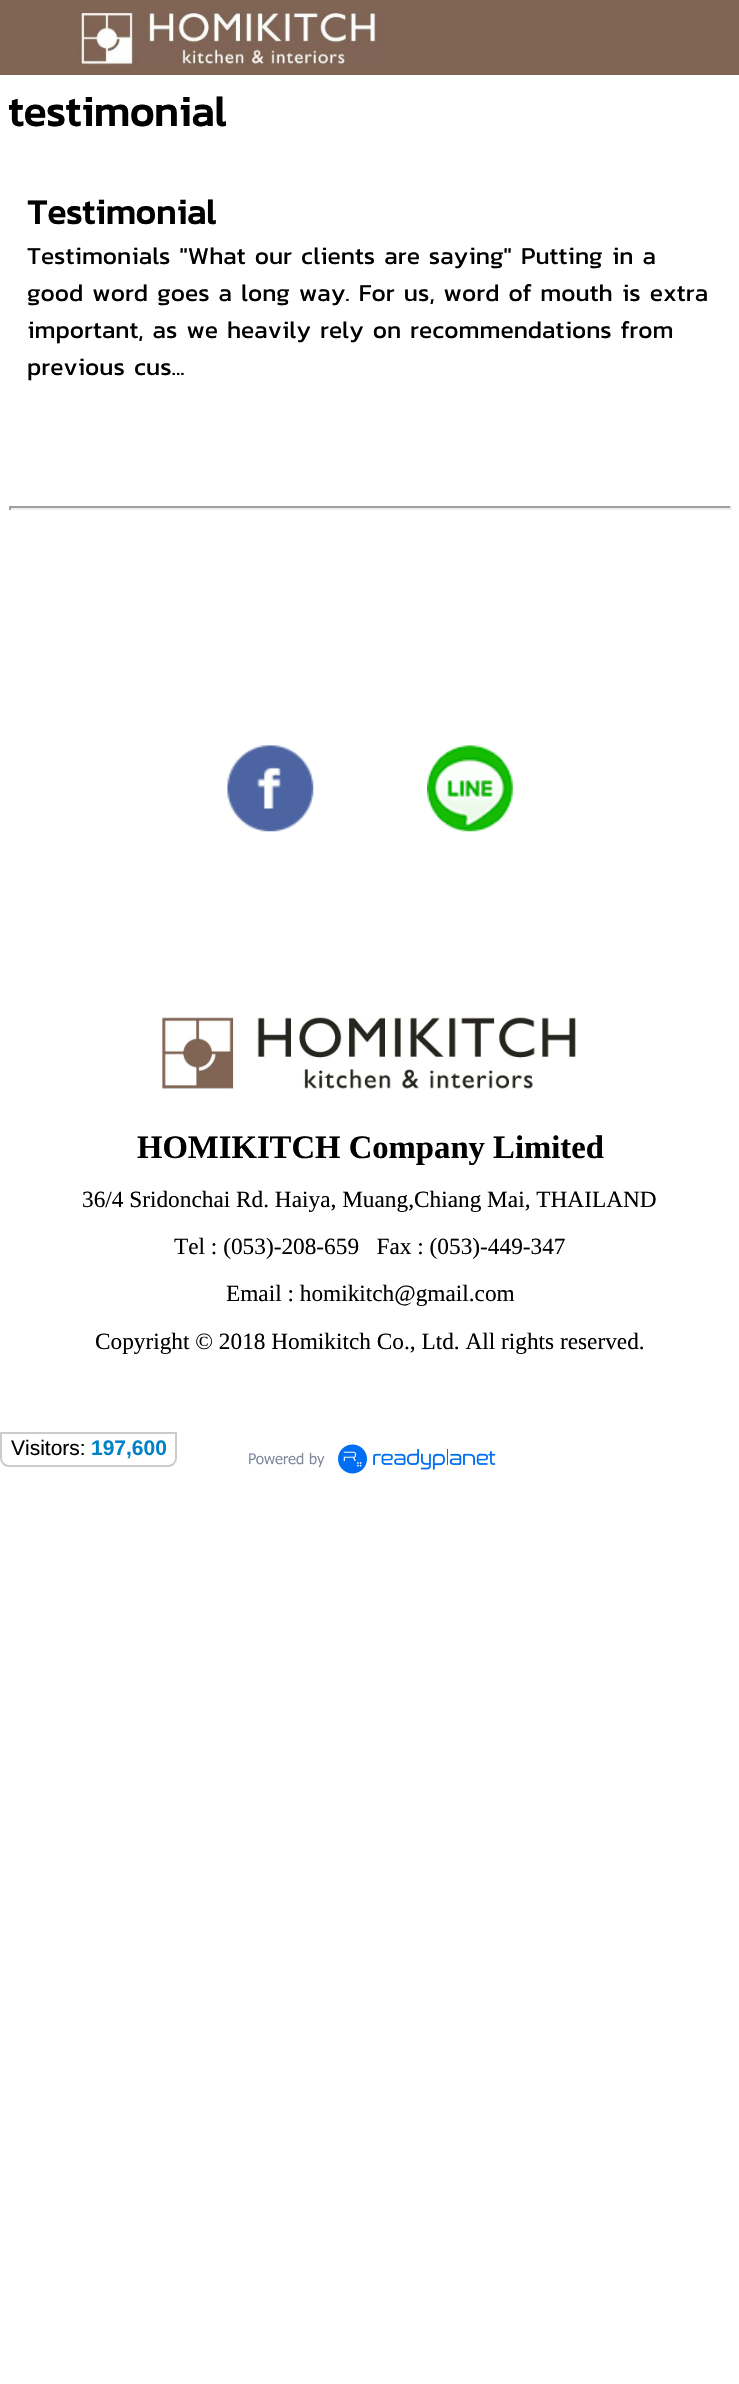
#include "include/core/SkBlurTypes.h"
#include "include/core/SkCanvas.h"
#include "include/core/SkData.h"
#include "include/core/SkFont.h"
#include "include/core/SkFontMgr.h"
#include "include/core/SkImage.h"
#include "include/core/SkMaskFilter.h"
#include "include/core/SkPaint.h"
#include "include/core/SkPathBuilder.h"
#include "include/core/SkTextBlob.h"
#include "include/effects/SkDashPathEffect.h"
#include "include/effects/SkGradientShader.h"
#include "include/utils/SkParsePath.h"

extern sk_sp<SkFontMgr> fontMgr;

void draw(SkCanvas* canvas) {
  SkPaint p;
  p.setAntiAlias(true);
  canvas->clear(SK_ColorWHITE);
  p.setColor(SkColorSetRGB(128, 101, 84));
  canvas->drawRect(SkRect::MakeLTRB(0, 0, 739, 75), p);
  canvas->drawImageRect(SkImages::DeferredFromEncodedData(SkData::MakeFromFileName("images/1.png")), SkRect::MakeLTRB(76, 12, 385, 66), SkSamplingOptions());
  p.setColor(SkColorSetRGB(159, 159, 159));
  canvas->drawRect(SkRect::MakeLTRB(9, 506, 732, 508), p);
  p.setColor(SkColorSetRGB(238, 238, 238));
  canvas->drawRect(SkRect::MakeLTRB(730, 506, 732, 510), p);
  canvas->drawRect(SkRect::MakeLTRB(9, 508, 732, 510), p);
  p.setColor(SkColorSetRGB(159, 159, 159));
  canvas->drawRect(SkRect::MakeLTRB(9, 506, 11, 510), p);
  canvas->drawImageRect(SkImages::DeferredFromEncodedData(SkData::MakeFromFileName("images/2.png")), SkRect::MakeLTRB(227, 745, 314, 832), SkSamplingOptions());
  canvas->drawImageRect(SkImages::DeferredFromEncodedData(SkData::MakeFromFileName("images/3.png")), SkRect::MakeLTRB(427, 745, 513, 832), SkSamplingOptions());
  canvas->drawImageRect(SkImages::DeferredFromEncodedData(SkData::MakeFromFileName("images/4.png")), SkRect::MakeLTRB(162, 1017, 576, 1090), SkSamplingOptions());
  p.setStyle(SkPaint::kStroke_Style);
  p.setStrokeWidth(2);
  p.setColor(SkColorSetRGB(204, 204, 204));
  canvas->drawPath(SkPathBuilder().moveTo(1, 1433).lineTo(176, 1433).lineTo(176, 1458).cubicTo(176, 1462.5f, 172.5f, 1466, 168, 1466).lineTo(9, 1466).cubicTo(4.5f, 1466, 1, 1462.5f, 1, 1458).close().detach(), p);
  canvas->drawImageRect(SkImages::DeferredFromEncodedData(SkData::MakeFromFileName("images/5.png")), SkRect::MakeLTRB(249, 1444, 496, 1474), SkSamplingOptions());
  SkFont font1(fontMgr->matchFamilyStyle("Kanit", SkFontStyle::Bold()), 42);
  font1.setSubpixel(true);
  p.setStyle(SkPaint::kFill_Style);
  p.setColor(SK_ColorBLACK);
  canvas->drawString("testimonial", 8, 126, font1, p);
  SkFont font2(fontMgr->matchFamilyStyle("Kanit", SkFontStyle::Bold()), 35);
  font2.setSubpixel(true);
  canvas->drawString("Testimonial", 27, 224, font2, p);
  SkFont font3(fontMgr->matchFamilyStyle("Kanit", SkFontStyle::Normal()), 24.5f);
  font3.setSubpixel(true);
  canvas->drawString("Testimonials \"What our clients are saying\" Putting in a", 27, 264, font3, p);
  canvas->drawString("good word goes a long way. For us, word of mouth is extra", 27, 301, font3, p);
  canvas->drawString("important, as we heavily rely on recommendations from", 27, 338, font3, p);
  canvas->drawString("previous cus...", 27, 375, font3, p);
  SkFont font4(fontMgr->matchFamilyStyle("Liberation Serif", SkFontStyle::Bold()), 32.7f);
  font4.setSubpixel(true);
  canvas->drawString("HOMIKITCH Company Limited", 137, 1158, font4, p);
  SkFont font5(fontMgr->matchFamilyStyle("Liberation Serif", SkFontStyle::Normal()), 23.3f);
  font5.setSubpixel(true);
  canvas->drawString("36/4 Sridonchai Rd. Haiya, Muang,Chiang Mai, THAILAND", 82, 1207, font5, p);
  canvas->drawString("Tel : (053)-208-659   Fax : (053)-449-347", 174, 1254, font5, p);
  canvas->drawString("Email : homikitch@gmail.com", 226, 1301, font5, p);
  canvas->drawString("Copyright © 2018 Homikitch Co., Ltd. All rights reserved.", 95, 1349, font5, p);
  SkFont font6(fontMgr->matchFamilyStyle("Liberation Sans", SkFontStyle::Normal()), 21);
  font6.setSubpixel(true);
  canvas->drawString("Visitors:", 11, 1455, font6, p);
  SkFont font7(fontMgr->matchFamilyStyle("Liberation Sans", SkFontStyle::Bold()), 21);
  font7.setSubpixel(true);
  p.setColor(SkColorSetRGB(0, 129, 200));
  canvas->drawString("197,600", 91, 1455, font7, p);
}
